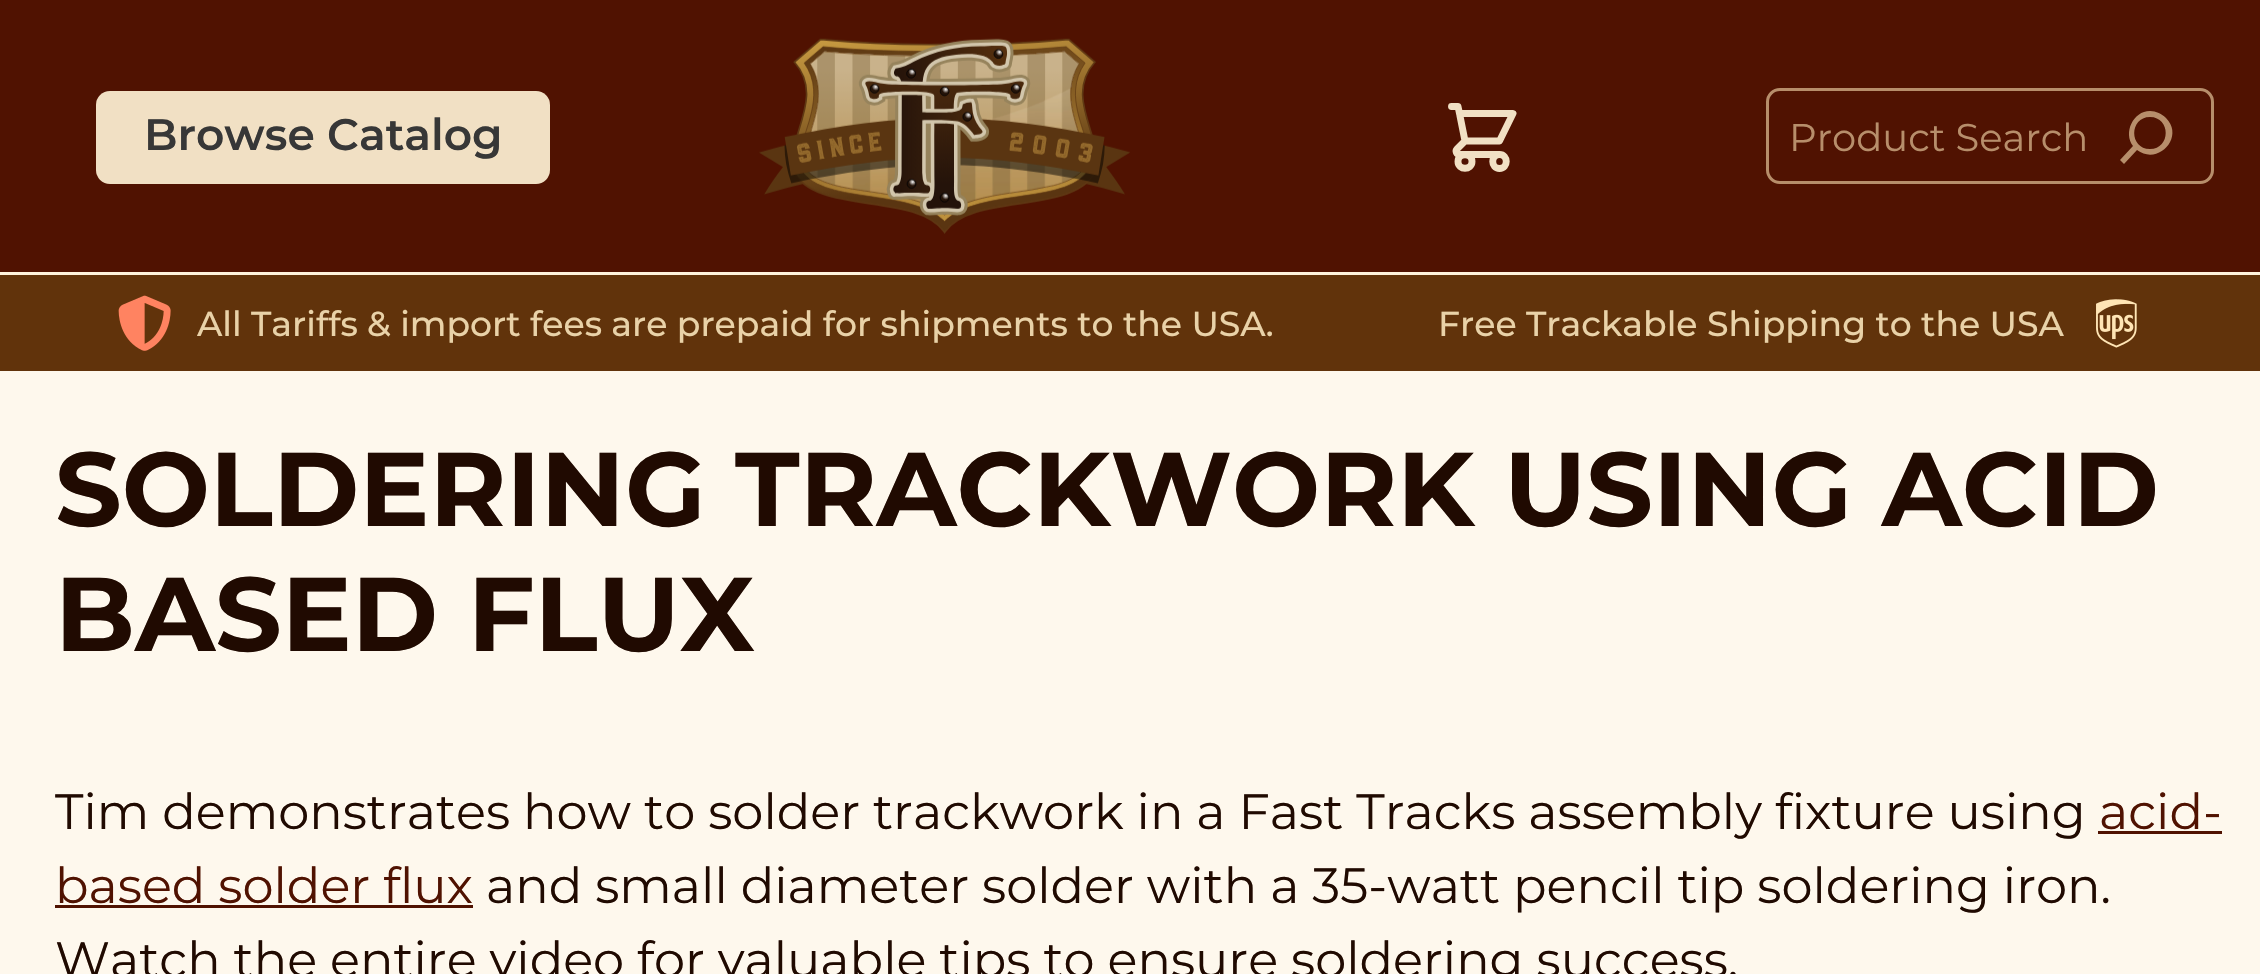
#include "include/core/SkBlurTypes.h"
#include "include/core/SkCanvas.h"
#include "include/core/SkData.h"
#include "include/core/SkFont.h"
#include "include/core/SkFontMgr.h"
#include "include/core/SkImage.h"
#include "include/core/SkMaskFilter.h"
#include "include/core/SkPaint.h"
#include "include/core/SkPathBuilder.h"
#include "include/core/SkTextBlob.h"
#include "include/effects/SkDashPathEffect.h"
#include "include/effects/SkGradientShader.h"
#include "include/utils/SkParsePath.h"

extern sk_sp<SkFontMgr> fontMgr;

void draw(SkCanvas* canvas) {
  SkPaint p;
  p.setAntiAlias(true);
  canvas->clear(SkColorSetRGB(254, 248, 237));
  p.setColor(SkColorSetRGB(80, 18, 1));
  canvas->drawRect(SkRect::MakeLTRB(0, 0, 2260, 272), p);
  p.setColor(SkColorSetRGB(255, 243, 220));
  canvas->drawRect(SkRect::MakeLTRB(0, 272, 2260, 275), p);
  p.setColor(SkColorSetRGB(241, 224, 196));
  canvas->drawRoundRect(SkRect::MakeLTRB(96, 91, 550, 184), 14, 14, p);
  canvas->drawImageRect(SkImages::DeferredFromEncodedData(SkData::MakeFromFileName("images/1.png")), SkRect::MakeLTRB(759, 38, 1130, 234), SkSamplingOptions());
  p.setStyle(SkPaint::kStroke_Style);
  p.setStrokeWidth(6.9f);
  p.setStrokeCap(SkPaint::kRound_Cap);
  p.setStrokeJoin(SkPaint::kRound_Join);
  canvas->drawPath(SkPathBuilder().moveTo(1451.5f, 106.5f).lineTo(1458, 106.5f).lineTo(1459.5f, 113.5f).moveTo(1465, 141).lineTo(1499.5f, 141).lineTo(1513, 113.5f).lineTo(1459.5f, 113.5f).moveTo(1465, 141).lineTo(1459.5f, 113.5f).moveTo(1465, 141).lineTo(1457, 149).cubicTo(1455, 151, 1456.5f, 154.5f, 1459.5f, 154.5f).lineTo(1499.5f, 154.5f).moveTo(1499.5f, 154.5f).cubicTo(1490.5f, 154.5f, 1490.5f, 168.5f, 1499.5f, 168.5f).cubicTo(1508.5f, 168.5f, 1508.5f, 154.5f, 1499.5f, 154.5f).close().moveTo(1472, 161.5f).cubicTo(1472, 170.5f, 1458, 170.5f, 1458, 161.5f).cubicTo(1458, 152.5f, 1472, 152.5f, 1472, 161.5f).close().detach(), p);
  p.setStrokeWidth(3);
  p.setStrokeCap(SkPaint::kButt_Cap);
  p.setStrokeJoin(SkPaint::kMiter_Join);
  p.setColor(SkColorSetRGB(183, 142, 107));
  canvas->drawRoundRect(SkRect::MakeLTRB(1767.5f, 89.5f, 2212.5f, 182.5f), 12.5f, 12.5f, p);
  p.setStyle(SkPaint::kFill_Style);
  canvas->drawPath(SkPathBuilder().moveTo(2150, 111).cubicTo(2133, 111, 2123, 133, 2133, 146).lineTo(2120, 160).lineTo(2124, 164).lineTo(2137, 150).cubicTo(2158, 166, 2185, 137, 2166, 118).cubicTo(2162, 114, 2156, 111, 2150, 111).close().moveTo(2150, 149).cubicTo(2129, 149, 2129, 117, 2150, 117).cubicTo(2171, 117, 2171, 149, 2150, 149).close().detach(), p);
  p.setColor(SkColorSetRGB(97, 51, 11));
  canvas->drawRect(SkRect::MakeLTRB(0, 275, 2260, 371), p);
  canvas->drawImageRect(SkImages::DeferredFromEncodedData(SkData::MakeFromFileName("images/2.png")), SkRect::MakeLTRB(118, 295, 171, 351), SkSamplingOptions());
  canvas->drawImageRect(SkImages::DeferredFromEncodedData(SkData::MakeFromFileName("images/3.png")), SkRect::MakeLTRB(2096, 299, 2137, 348), SkSamplingOptions());
  p.setColor(SkColorSetRGB(80, 18, 1));
  canvas->drawRect(SkRect::MakeLTRB(2098, 831, 2222, 834), p);
  canvas->drawRect(SkRect::MakeLTRB(55, 905, 473, 908), p);
  SkFont font1(fontMgr->matchFamilyStyle("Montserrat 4", SkFontStyle(100, SkFontStyle::kNormal_Width, SkFontStyle::kUpright_Slant)), 44);
  font1.setSubpixel(true);
  p.setColor(SkColorSetRGB(55, 55, 55));
  canvas->drawString("Browse Catalog", 144, 150, font1, p);
  SkFont font2(fontMgr->matchFamilyStyle("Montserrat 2", SkFontStyle(100, SkFontStyle::kNormal_Width, SkFontStyle::kUpright_Slant)), 38.5f);
  font2.setSubpixel(true);
  p.setColor(SkColorSetRGB(183, 142, 107));
  canvas->drawString("Product Search", 1789, 151, font2, p);
  SkFont font3(fontMgr->matchFamilyStyle("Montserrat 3", SkFontStyle(100, SkFontStyle::kNormal_Width, SkFontStyle::kUpright_Slant)), 34.65f);
  font3.setSubpixel(true);
  p.setColor(SkColorSetRGB(233, 210, 168));
  canvas->drawString("All Tariffs & import fees are prepaid for shipments to the USA.", 197, 336, font3, p);
  canvas->drawString("Free Trackable Shipping to the USA", 1438, 336, font3, p);
  SkFont font4(fontMgr->matchFamilyStyle("Montserrat", SkFontStyle(100, SkFontStyle::kNormal_Width, SkFontStyle::kUpright_Slant)), 104.5f);
  font4.setSubpixel(true);
  p.setColor(SkColorSetRGB(32, 10, 1));
  canvas->drawString("SOLDERING TRACKWORK USING ACID", 55, 526, font4, p);
  canvas->drawString("BASED FLUX", 55, 651, font4, p);
  SkFont font5(fontMgr->matchFamilyStyle("Montserrat 2", SkFontStyle(100, SkFontStyle::kNormal_Width, SkFontStyle::kUpright_Slant)), 49.5f);
  font5.setSubpixel(true);
  canvas->drawString("Tim demonstrates how to solder trackwork in a Fast Tracks assembly fixture using", 55, 829, font5, p);
  p.setColor(SkColorSetRGB(80, 18, 1));
  canvas->drawString("acid-", 2099, 829, font5, p);
  canvas->drawString("based solder flux", 55, 903, font5, p);
  p.setColor(SkColorSetRGB(32, 10, 1));
  canvas->drawString("and small diameter solder with a 35-watt pencil tip soldering iron.", 486, 903, font5, p);
  canvas->drawString("Watch the entire video for valuable tips to ensure soldering success.", 55, 977, font5, p);
}
